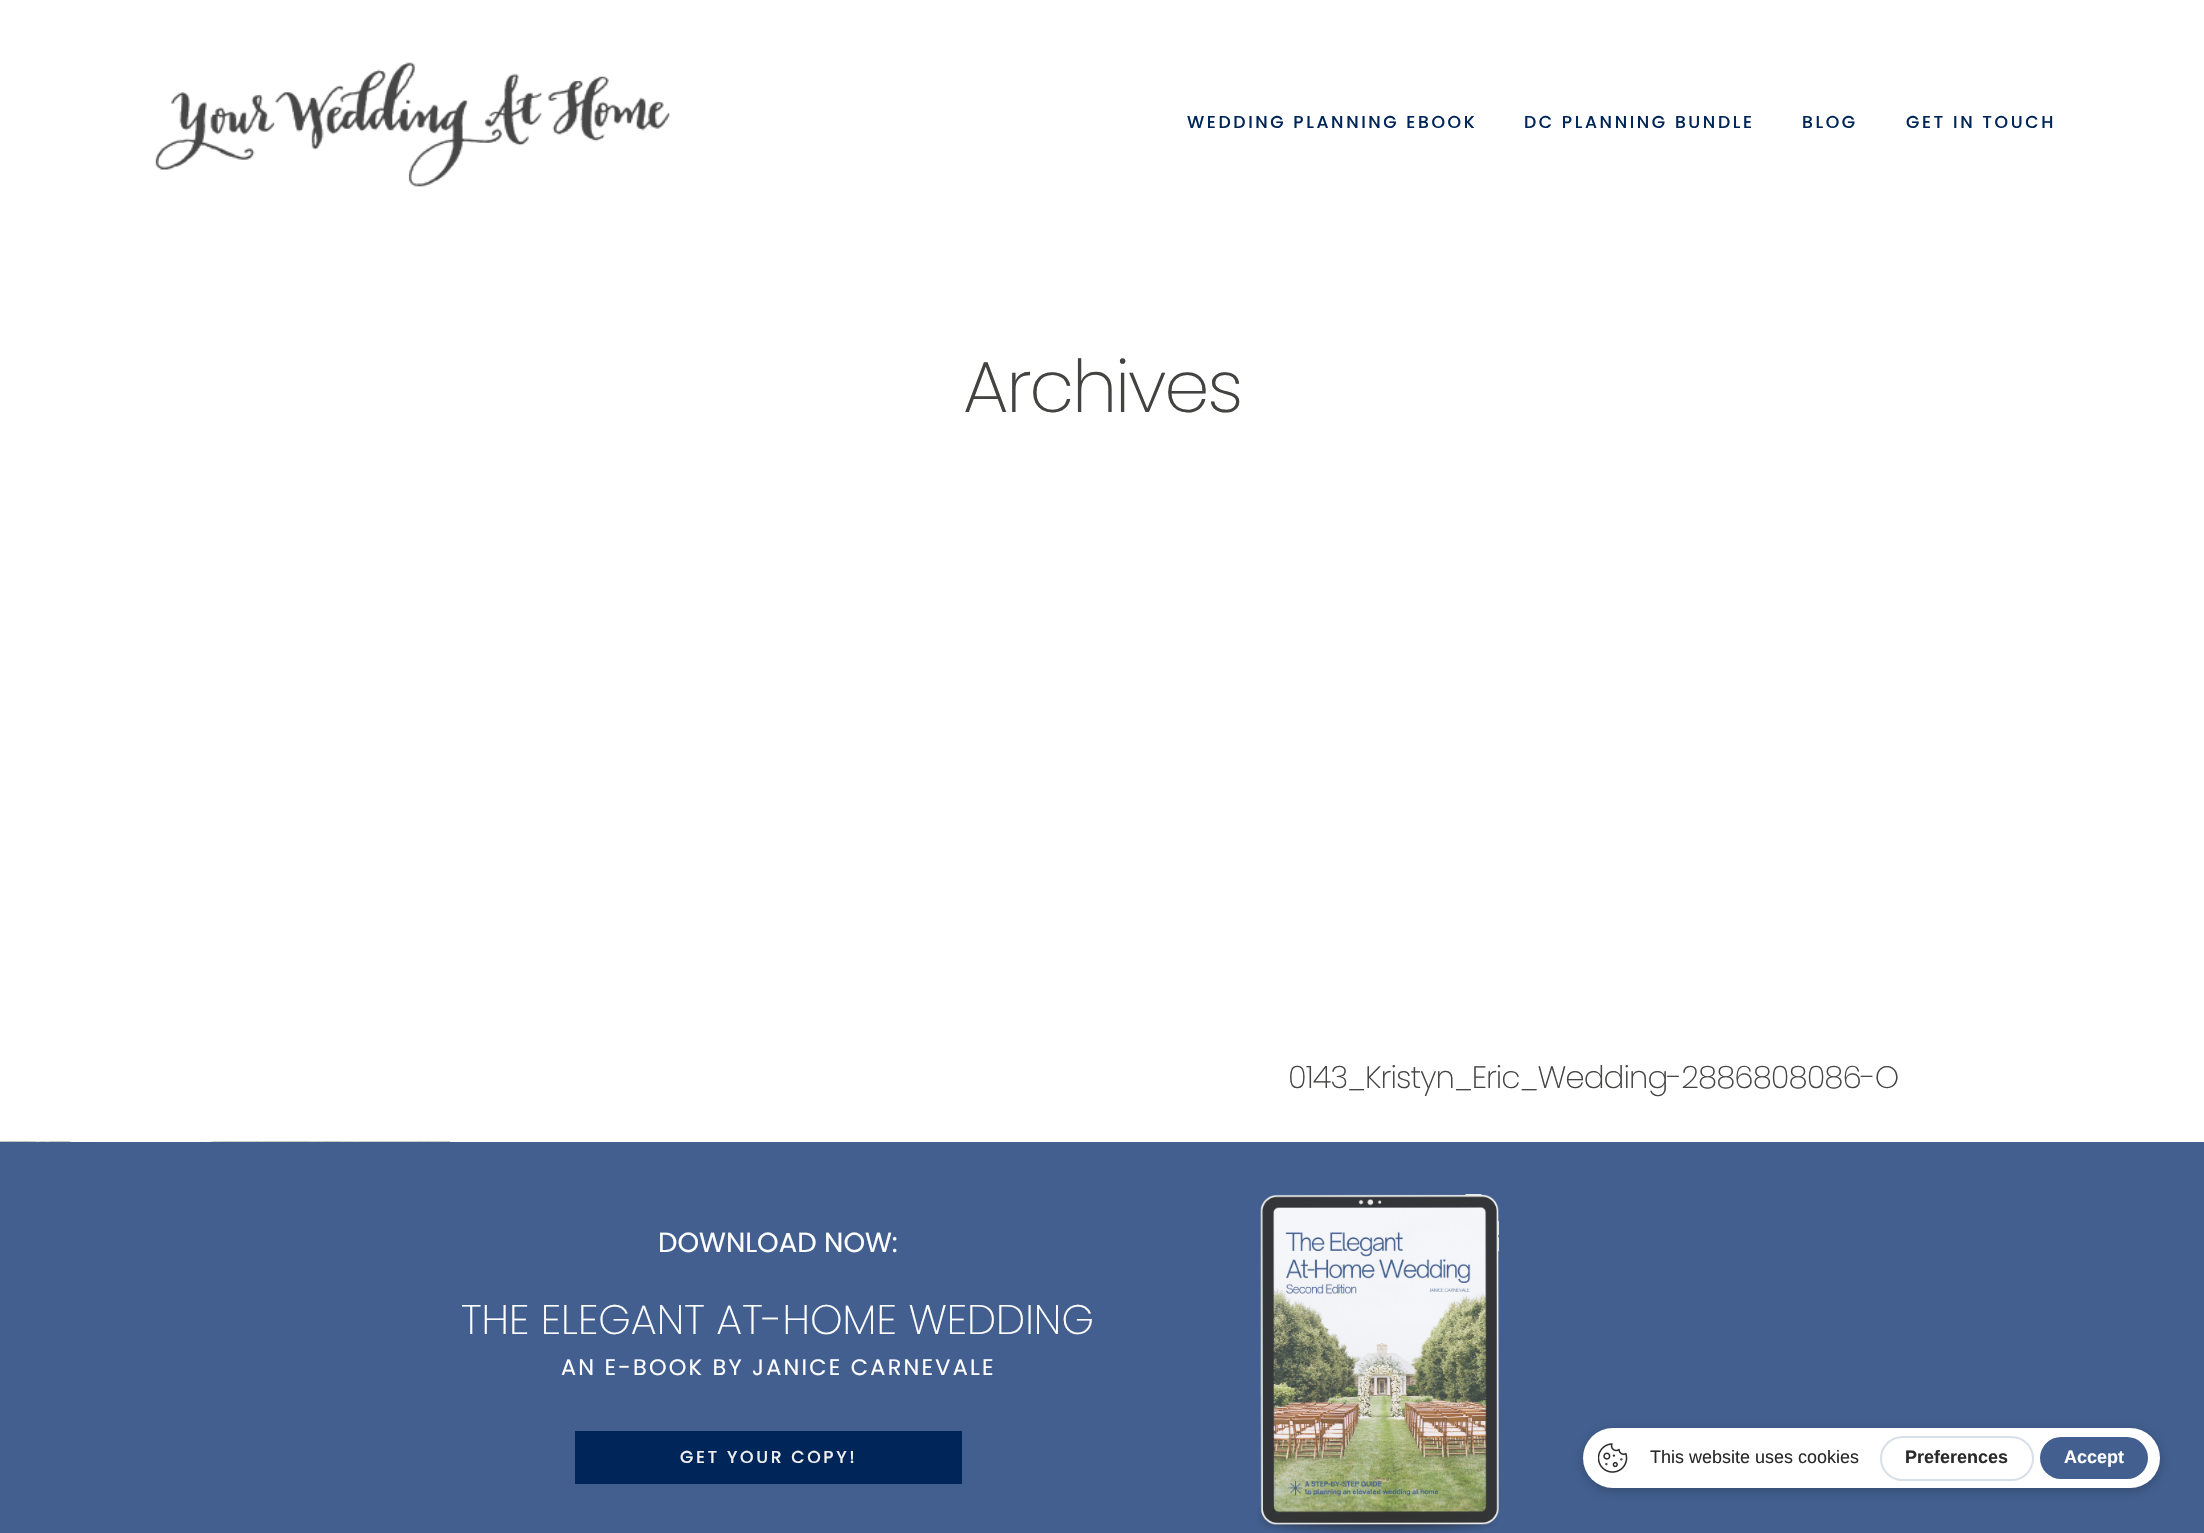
#include "include/core/SkBlurTypes.h"
#include "include/core/SkCanvas.h"
#include "include/core/SkData.h"
#include "include/core/SkFont.h"
#include "include/core/SkFontMgr.h"
#include "include/core/SkImage.h"
#include "include/core/SkMaskFilter.h"
#include "include/core/SkPaint.h"
#include "include/core/SkPathBuilder.h"
#include "include/core/SkTextBlob.h"
#include "include/effects/SkDashPathEffect.h"
#include "include/effects/SkGradientShader.h"
#include "include/utils/SkParsePath.h"

extern sk_sp<SkFontMgr> fontMgr;

void draw(SkCanvas* canvas) {
  SkPaint p;
  p.setAntiAlias(true);
  auto spacedText = [&](const char* s, float x, float y, const SkFont& font, const SkPaint& ink, float letter, float word) {
    std::vector<SkGlyphID> glyphs(font.countText(s, strlen(s), SkTextEncoding::kUTF8));
    std::vector<float> xs(glyphs.size());
    font.textToGlyphs(s, strlen(s), SkTextEncoding::kUTF8, glyphs);
    font.getXPos(glyphs, xs, x);
    float extra = 0;
    for (size_t i = 0; i < glyphs.size(); i++) {
      xs[i] += extra;
      extra += letter + word * (glyphs[i] == font.unicharToGlyph(' '));
    }
    canvas->drawTextBlob(SkTextBlob::MakeFromPosHGlyphs(glyphs, xs, y, font), 0, 0, ink);
  };
  canvas->clear(SK_ColorWHITE);
  canvas->drawImageRect(SkImages::DeferredFromEncodedData(SkData::MakeFromFileName("images/1.png")), SkRect::MakeLTRB(155, 62, 670, 187), SkSamplingOptions());
  canvas->drawImageRect(SkImages::DeferredFromEncodedData(SkData::MakeFromFileName("images/2.png")), SkRect::MakeLTRB(0, 1141, 450, 1142), SkSamplingOptions());
  p.setColor(SkColorSetRGB(66, 95, 143));
  canvas->drawRect(SkRect::MakeLTRB(0, 1142, 2204, 1533), p);
  canvas->drawImageRect(SkImages::DeferredFromEncodedData(SkData::MakeFromFileName("images/3.png")), SkRect::MakeLTRB(1257, 1194, 1500, 1533), SkSamplingOptions());
  p.setColor(SkColorSetRGB(0, 37, 88));
  canvas->drawRect(SkRect::MakeLTRB(575, 1431, 962, 1484), p);
  p.setColor(SkColorSetARGB(51, 0, 0, 0));
  p.setMaskFilter(SkMaskFilter::MakeBlur(kNormal_SkBlurStyle, 6));
  canvas->drawRoundRect(SkRect::MakeLTRB(1583, 1431, 2160, 1491), 30, 30, p);
  p.setMaskFilter(nullptr);
  p.setColor(SK_ColorWHITE);
  canvas->drawRoundRect(SkRect::MakeLTRB(1583, 1428, 2160, 1488), 30, 30, p);
  canvas->drawImageRect(SkImages::DeferredFromEncodedData(SkData::MakeFromFileName("images/4.png")), SkRect::MakeLTRB(1598, 1443, 1628, 1473), SkSamplingOptions());
  p.setStyle(SkPaint::kStroke_Style);
  p.setStrokeWidth(2);
  p.setColor(SkColorSetRGB(217, 223, 233));
  canvas->drawRoundRect(SkRect::MakeLTRB(1881, 1437, 2033, 1480), 21.5f, 21.5f, p);
  p.setStyle(SkPaint::kFill_Style);
  p.setColor(SkColorSetRGB(66, 95, 143));
  canvas->drawRoundRect(SkRect::MakeLTRB(2040, 1437, 2148, 1479), 21, 21, p);
  SkFont font1(fontMgr->matchFamilyStyle("Poppins", SkFontStyle(500, SkFontStyle::kNormal_Width, SkFontStyle::kUpright_Slant)), 17.25f);
  font1.setSubpixel(true);
  p.setColor(SkColorSetRGB(0, 37, 88));
  spacedText("WEDDING PLANNING EBOOK", 1187, 128, font1, p, 2.6f, 0);
  spacedText("DC PLANNING BUNDLE", 1524, 128, font1, p, 2.6f, 0);
  spacedText("BLOG", 1802, 128, font1, p, 2.6f, 0);
  spacedText("GET IN TOUCH", 1906, 128, font1, p, 2.6f, 0);
  SkFont font2(fontMgr->matchFamilyStyle("Poppins", SkFontStyle(200, SkFontStyle::kNormal_Width, SkFontStyle::kUpright_Slant)), 72.5f);
  font2.setSubpixel(true);
  p.setColor(SkColorSetRGB(67, 68, 66));
  spacedText("Archives", 963, 412, font2, p, -2.25f, 0);
  SkFont font3(fontMgr->matchFamilyStyle("Poppins", SkFontStyle(200, SkFontStyle::kNormal_Width, SkFontStyle::kUpright_Slant)), 31);
  font3.setSubpixel(true);
  spacedText("0143_Kristyn_Eric_Wedding-2886808086-O", 1288, 1088, font3, p, -0.95f, 0);
  SkFont font4(fontMgr->matchFamilyStyle("Poppins", SkFontStyle::Normal()), 27.5f);
  font4.setSubpixel(true);
  p.setColor(SK_ColorWHITE);
  canvas->drawString("DOWNLOAD NOW:", 658, 1252, font4, p);
  SkFont font5(fontMgr->matchFamilyStyle("Poppins", SkFontStyle(200, SkFontStyle::kNormal_Width, SkFontStyle::kUpright_Slant)), 41.3f);
  font5.setSubpixel(true);
  canvas->drawString("THE ELEGANT AT-HOME WEDDING", 461, 1334, font5, p);
  SkFont font6(fontMgr->matchFamilyStyle("Poppins", SkFontStyle::Normal()), 22.4f);
  font6.setSubpixel(true);
  spacedText("AN E-BOOK BY JANICE CARNEVALE", 561, 1375, font6, p, 2.25f, 0);
  p.setColor(SkColorSetRGB(240, 240, 240));
  spacedText("GET YOUR COPY!", 680, 1463, font1, p, 2.6f, 0);
  SkFont font7(fontMgr->matchFamilyStyle("Liberation Sans", SkFontStyle::Normal()), 18);
  font7.setSubpixel(true);
  p.setColor(SkColorSetRGB(42, 42, 42));
  canvas->drawString("This website uses cookies", 1650, 1463, font7, p);
  SkFont font8(fontMgr->matchFamilyStyle("Liberation Sans", SkFontStyle::Bold()), 18);
  font8.setSubpixel(true);
  canvas->drawString("Preferences", 1905, 1463, font8, p);
  p.setColor(SK_ColorWHITE);
  canvas->drawString("Accept", 2064, 1463, font8, p);
}
